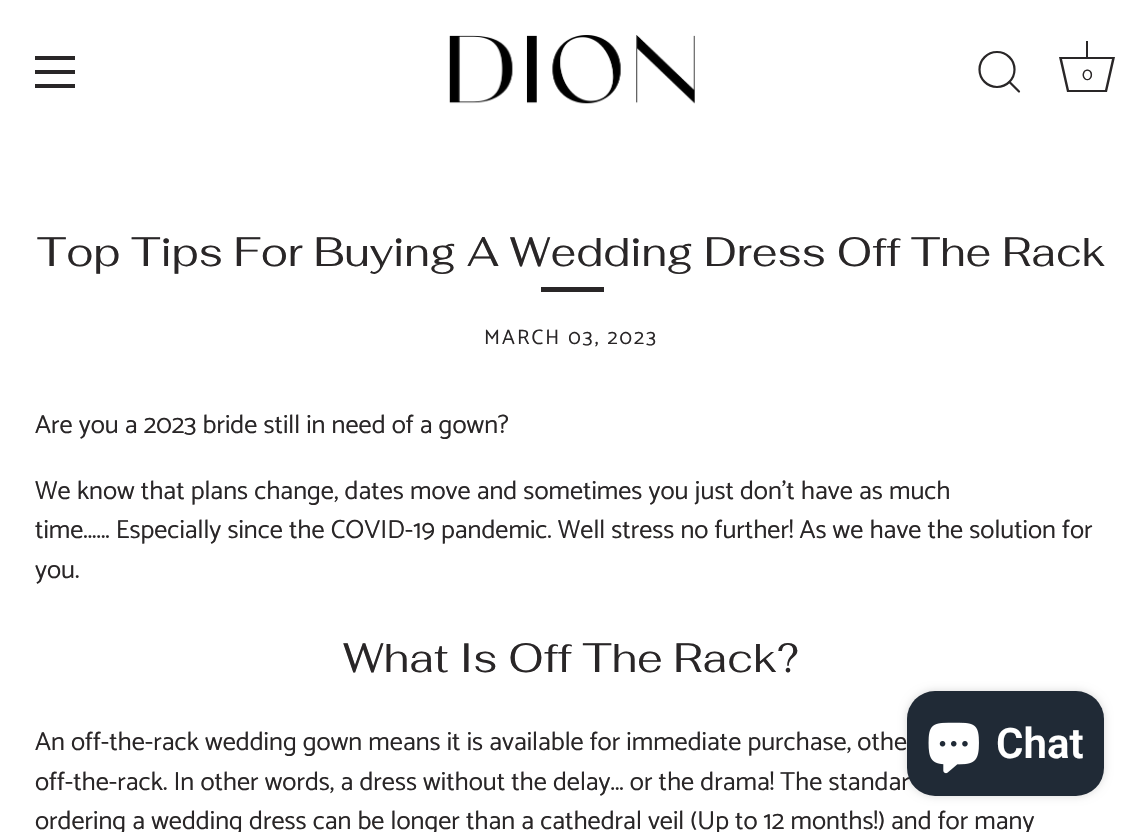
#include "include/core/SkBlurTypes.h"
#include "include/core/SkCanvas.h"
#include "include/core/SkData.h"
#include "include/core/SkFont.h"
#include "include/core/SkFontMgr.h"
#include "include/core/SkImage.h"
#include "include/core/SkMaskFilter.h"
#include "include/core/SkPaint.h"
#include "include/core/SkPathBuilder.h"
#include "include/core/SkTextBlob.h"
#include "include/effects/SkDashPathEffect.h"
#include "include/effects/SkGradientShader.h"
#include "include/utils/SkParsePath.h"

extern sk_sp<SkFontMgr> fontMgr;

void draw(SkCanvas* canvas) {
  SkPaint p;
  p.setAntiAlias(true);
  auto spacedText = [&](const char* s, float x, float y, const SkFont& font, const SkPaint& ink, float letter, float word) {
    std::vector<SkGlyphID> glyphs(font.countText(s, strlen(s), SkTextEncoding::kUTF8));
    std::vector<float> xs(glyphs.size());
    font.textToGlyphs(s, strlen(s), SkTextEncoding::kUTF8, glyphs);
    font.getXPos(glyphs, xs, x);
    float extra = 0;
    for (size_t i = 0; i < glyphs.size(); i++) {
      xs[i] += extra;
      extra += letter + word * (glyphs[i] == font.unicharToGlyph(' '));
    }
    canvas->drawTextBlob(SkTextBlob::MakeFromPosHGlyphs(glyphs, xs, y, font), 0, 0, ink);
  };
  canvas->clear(SK_ColorWHITE);
  p.setColor(SkColorSetRGB(41, 38, 39));
  canvas->drawRect(SkRect::MakeLTRB(35, 56, 75, 60), p);
  canvas->drawRect(SkRect::MakeLTRB(35, 70, 75, 74), p);
  canvas->drawRect(SkRect::MakeLTRB(35, 84, 75, 88), p);
  canvas->drawImageRect(SkImages::DeferredFromEncodedData(SkData::MakeFromFileName("images/1.png")), SkRect::MakeLTRB(449, 35, 695, 104), SkSamplingOptions());
  p.setStyle(SkPaint::kStroke_Style);
  p.setStrokeWidth(2.2f);
  canvas->drawCircle(997, 69.5f, 17.5f, p);
  p.setStrokeCap(SkPaint::kRound_Cap);
  p.setStrokeJoin(SkPaint::kRound_Join);
  canvas->drawPath(SkPathBuilder().moveTo(1019, 91.5f).lineTo(1009.5f, 82).detach(), p);
  p.setStyle(SkPaint::kFill_Style);
  canvas->drawRect(SkRect::MakeLTRB(1086, 41, 1088, 57), p);
  canvas->drawPath(SkPathBuilder().moveTo(1112, 59).lineTo(1105, 90).lineTo(1069, 90).lineTo(1062, 59).lineTo(1112, 59).moveTo(1115, 57).lineTo(1059, 57).lineTo(1067, 92).lineTo(1107, 92).close().detach(), p);
  canvas->drawRect(SkRect::MakeLTRB(541, 287, 604, 292), p);
  p.setColor(SkColorSetARGB(38, 0, 0, 0));
  p.setMaskFilter(SkMaskFilter::MakeBlur(kNormal_SkBlurStyle, 4.5f));
  canvas->drawRoundRect(SkRect::MakeLTRB(907, 691, 1104, 796), 28, 28, p);
  p.setMaskFilter(nullptr);
  SkFont font1(fontMgr->matchFamilyStyle("Catamaran", SkFontStyle::Normal()), 18);
  font1.setSubpixel(true);
  p.setColor(SkColorSetRGB(41, 38, 39));
  canvas->drawString("0", 1082, 80, font1, p);
  SkFont font2(fontMgr->matchFamilyStyle("Fahkwang", SkFontStyle::Normal()), 40.95f);
  font2.setSubpixel(true);
  canvas->drawString("Top Tips For Buying A Wedding Dress Off The Rack", 37, 266, font2, p);
  SkFont font3(fontMgr->matchFamilyStyle("Catamaran", SkFontStyle::Normal()), 21);
  font3.setSubpixel(true);
  spacedText("MARCH 03, 2023", 484, 344, font3, p, 2.1f, 0);
  SkFont font4(fontMgr->matchFamilyStyle("Catamaran", SkFontStyle::Normal()), 26.25f);
  font4.setSubpixel(true);
  canvas->drawString("Are you a 2023 bride still in need of a gown?", 35, 433, font4, p);
  canvas->drawString("We know that plans change, dates move and sometimes you just don't have as much", 35, 499, font4, p);
  canvas->drawString("time...... Especially since the COVID-19 pandemic. Well stress no further! As we have the solution for", 35, 538, font4, p);
  canvas->drawString("you.", 35, 578, font4, p);
  canvas->drawString("What Is Off The Rack?", 343, 672, font2, p);
  canvas->drawString("An off-the-rack wedding gown means it is available for immediate purchase, othe", 35, 750, font4, p);
  canvas->drawString("off-the-rack. In other words, a dress without the delay... or the drama! The standar", 35, 790, font4, p);
  canvas->drawString("ordering a wedding dress can be longer than a cathedral veil (Up to 12 months!) and for many", 35, 829, font4, p);
  p.setColor(SkColorSetRGB(32, 42, 54));
  canvas->drawRoundRect(SkRect::MakeLTRB(907, 691, 1104, 796), 28, 28, p);
  canvas->drawImageRect(SkImages::DeferredFromEncodedData(SkData::MakeFromFileName("images/2.png")), SkRect::MakeLTRB(928, 722, 979, 774), SkSamplingOptions());
  SkFont font5(fontMgr->matchFamilyStyle("Roboto", SkFontStyle(600, SkFontStyle::kNormal_Width, SkFontStyle::kUpright_Slant)), 42);
  font5.setSubpixel(true);
  p.setColor(SK_ColorWHITE);
  canvas->drawString("Chat", 996, 758, font5, p);
}
